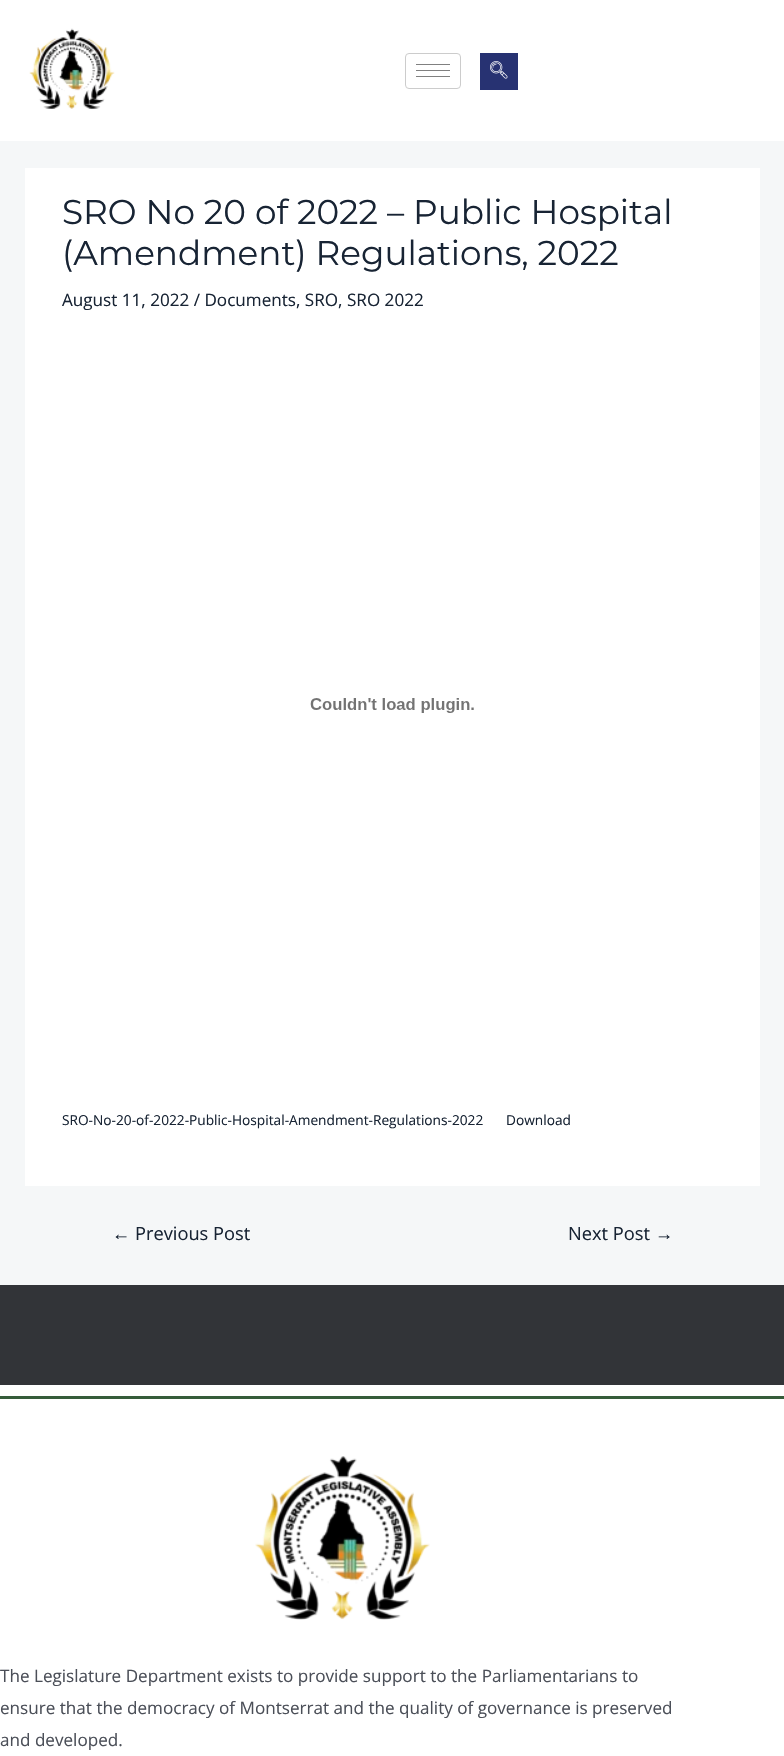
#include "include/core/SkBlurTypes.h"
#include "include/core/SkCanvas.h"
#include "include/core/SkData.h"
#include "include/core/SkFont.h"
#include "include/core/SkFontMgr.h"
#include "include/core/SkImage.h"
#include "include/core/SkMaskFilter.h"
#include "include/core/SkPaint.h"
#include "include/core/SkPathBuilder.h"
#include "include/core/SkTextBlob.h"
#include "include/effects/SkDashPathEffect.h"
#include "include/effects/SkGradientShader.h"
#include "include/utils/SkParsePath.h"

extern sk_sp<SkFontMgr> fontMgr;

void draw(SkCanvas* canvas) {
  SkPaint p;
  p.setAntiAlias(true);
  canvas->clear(SkColorSetRGB(245, 247, 248));
  p.setColor(SK_ColorWHITE);
  canvas->drawRect(SkRect::MakeLTRB(0, 0, 784, 141), p);
  canvas->drawImageRect(SkImages::DeferredFromEncodedData(SkData::MakeFromFileName("images/1.png")), SkRect::MakeLTRB(29, 28, 115, 109), SkSamplingOptions());
  p.setStyle(SkPaint::kStroke_Style);
  p.setStrokeWidth(1);
  p.setColor(SkColorSetRGB(204, 204, 204));
  canvas->drawRoundRect(SkRect::MakeLTRB(405.5f, 53.5f, 460.5f, 88.5f), 3.5f, 3.5f, p);
  p.setStyle(SkPaint::kFill_Style);
  p.setColor(SkColorSetRGB(128, 128, 128));
  canvas->drawRect(SkRect::MakeLTRB(416, 64, 450, 65), p);
  canvas->drawRect(SkRect::MakeLTRB(416, 70, 450, 71), p);
  canvas->drawRect(SkRect::MakeLTRB(416, 76, 450, 77), p);
  p.setColor(SkColorSetRGB(39, 50, 114));
  canvas->drawRect(SkRect::MakeLTRB(480, 53, 518, 90), p);
  canvas->drawImageRect(SkImages::DeferredFromEncodedData(SkData::MakeFromFileName("images/2.png")), SkRect::MakeLTRB(490, 61, 508, 79), SkSamplingOptions());
  p.setColor(SK_ColorWHITE);
  canvas->drawRect(SkRect::MakeLTRB(25, 168, 760, 1186), p);
  canvas->drawImageRect(SkImages::DeferredFromEncodedData(SkData::MakeFromFileName("images/3.png")), SkRect::MakeLTRB(310, 698, 474, 713), SkSamplingOptions());
  p.setColor(SkColorSetRGB(50, 52, 56));
  canvas->drawRect(SkRect::MakeLTRB(0, 1285, 784, 1385), p);
  p.setColor(SK_ColorWHITE);
  canvas->drawRect(SkRect::MakeLTRB(0, 1385, 784, 1756), p);
  p.setColor(SkColorSetRGB(53, 92, 58));
  canvas->drawRect(SkRect::MakeLTRB(0, 1396, 784, 1399), p);
  canvas->drawImageRect(SkImages::DeferredFromEncodedData(SkData::MakeFromFileName("images/4.png")), SkRect::MakeLTRB(255, 1456, 430, 1620), SkSamplingOptions());
  SkFont font1(fontMgr->matchFamilyStyle("Montserrat", SkFontStyle(100, SkFontStyle::kNormal_Width, SkFontStyle::kUpright_Slant)), 34.25f);
  font1.setSubpixel(true);
  p.setColor(SkColorSetRGB(24, 36, 52));
  canvas->drawString("SRO No 20 of 2022 – Public Hospital", 62, 224, font1, p);
  canvas->drawString("(Amendment) Regulations, 2022", 62, 265, font1, p);
  SkFont font2(fontMgr->matchFamilyStyle("Open Sans", SkFontStyle::Normal()), 17.1f);
  font2.setSubpixel(true);
  canvas->drawString("August 11, 2022 / Documents, SRO, SRO 2022", 62, 306, font2, p);
  SkFont font3(fontMgr->matchFamilyStyle("Open Sans", SkFontStyle::Normal()), 13.7f);
  font3.setSubpixel(true);
  canvas->drawString("SRO-No-20-of-2022-Public-Hospital-Amendment-Regulations-2022", 62, 1125, font3, p);
  canvas->drawString("Download", 506, 1125, font3, p);
  SkFont font4(fontMgr->matchFamilyStyle("Liberation Sans", SkFontStyle::Normal()), 18.25f);
  font4.setSubpixel(true);
  canvas->drawString("←", 112, 1240, font4, p);
  SkFont font5(fontMgr->matchFamilyStyle("Open Sans", SkFontStyle::Normal()), 18.25f);
  font5.setSubpixel(true);
  canvas->drawString("Previous Post", 135, 1240, font5, p);
  canvas->drawString("Next Post", 568, 1240, font5, p);
  canvas->drawString("→", 655, 1240, font4, p);
  p.setColor(SkColorSetRGB(75, 79, 88));
  canvas->drawString("The Legislature Department exists to provide support to the Parliamentarians to", 0, 1682, font2, p);
  canvas->drawString("ensure that the democracy of Montserrat and the quality of governance is preserved", 0, 1714, font2, p);
  canvas->drawString("and developed.", 0, 1746, font2, p);
}
